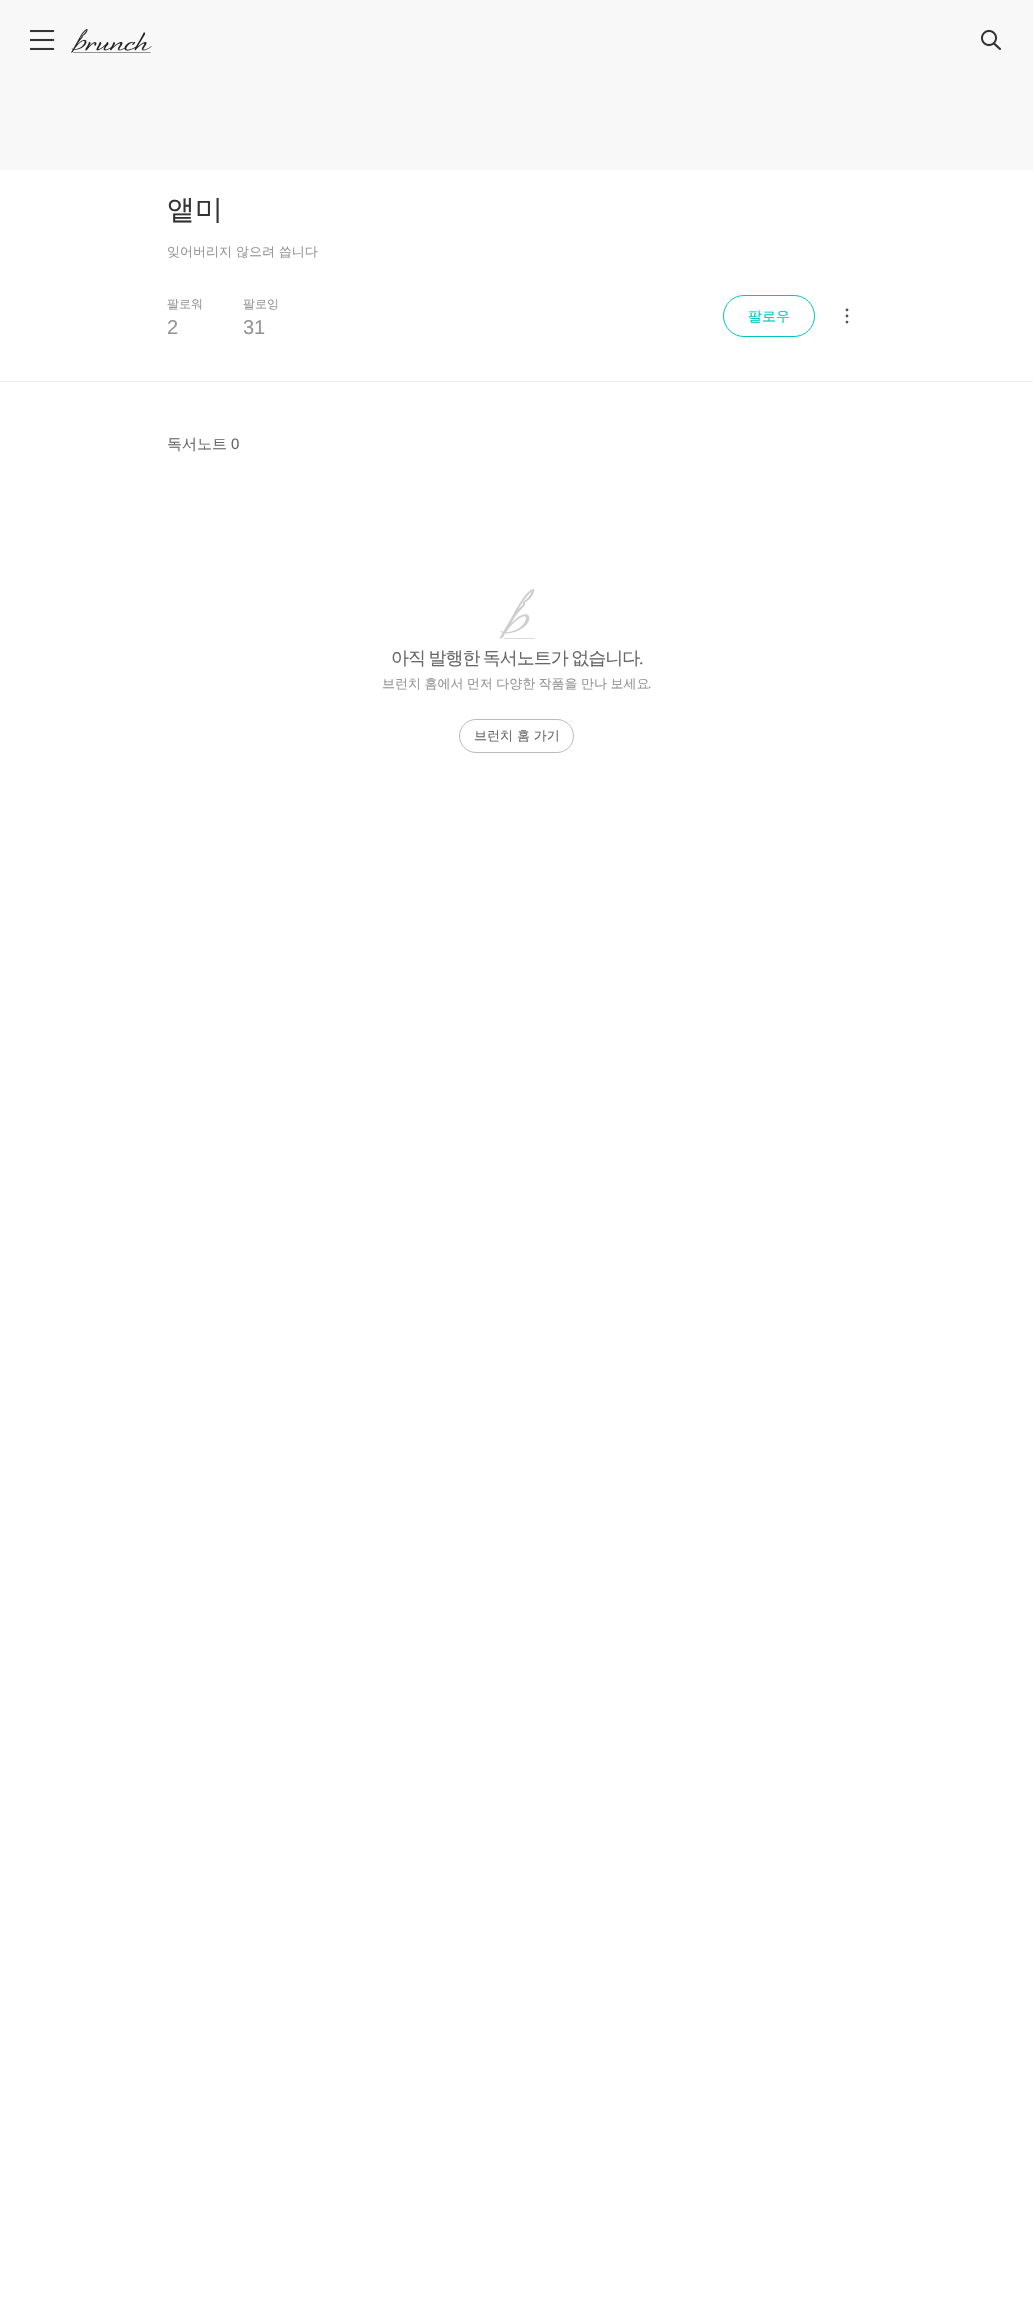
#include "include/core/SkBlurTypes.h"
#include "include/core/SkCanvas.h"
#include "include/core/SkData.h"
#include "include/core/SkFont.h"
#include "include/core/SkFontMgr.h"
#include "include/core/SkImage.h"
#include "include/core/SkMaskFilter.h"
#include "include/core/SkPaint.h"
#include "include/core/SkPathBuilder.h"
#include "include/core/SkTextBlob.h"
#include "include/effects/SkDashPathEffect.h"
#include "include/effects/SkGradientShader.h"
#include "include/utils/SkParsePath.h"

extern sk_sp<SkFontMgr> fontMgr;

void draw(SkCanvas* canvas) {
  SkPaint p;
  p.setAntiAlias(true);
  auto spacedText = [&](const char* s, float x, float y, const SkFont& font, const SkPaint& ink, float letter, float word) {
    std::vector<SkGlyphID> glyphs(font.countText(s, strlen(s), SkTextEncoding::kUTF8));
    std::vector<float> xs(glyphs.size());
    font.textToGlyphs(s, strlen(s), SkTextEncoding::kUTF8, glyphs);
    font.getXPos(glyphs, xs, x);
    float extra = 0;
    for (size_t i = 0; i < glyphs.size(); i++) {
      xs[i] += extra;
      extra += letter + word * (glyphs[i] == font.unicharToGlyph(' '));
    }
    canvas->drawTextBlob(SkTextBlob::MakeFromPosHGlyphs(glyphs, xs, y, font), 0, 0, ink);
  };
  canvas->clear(SK_ColorWHITE);
  p.setColor(SkColorSetRGB(248, 248, 248));
  canvas->drawRect(SkRect::MakeLTRB(0, 0, 1033, 170), p);
  canvas->drawImageRect(SkImages::DeferredFromEncodedData(SkData::MakeFromFileName("images/1.png")), SkRect::MakeLTRB(30, 30, 55, 50), SkSamplingOptions());
  canvas->drawImageRect(SkImages::DeferredFromEncodedData(SkData::MakeFromFileName("images/2.png")), SkRect::MakeLTRB(71, 29, 152, 53), SkSamplingOptions());
  canvas->drawImageRect(SkImages::DeferredFromEncodedData(SkData::MakeFromFileName("images/3.png")), SkRect::MakeLTRB(981, 30, 1001, 50), SkSamplingOptions());
  p.setStyle(SkPaint::kStroke_Style);
  p.setStrokeWidth(1);
  p.setColor(SkColorSetRGB(0, 198, 190));
  canvas->drawRoundRect(SkRect::MakeLTRB(723.5f, 295.5f, 814.5f, 336.5f), 20.5f, 20.5f, p);
  p.setStyle(SkPaint::kFill_Style);
  p.setColor(SkColorSetRGB(82, 82, 91));
  canvas->drawCircle(847, 309.9f, 1.4f, p);
  canvas->drawCircle(847, 316, 1.4f, p);
  canvas->drawCircle(847, 322.1f, 1.4f, p);
  p.setColor(SkColorSetRGB(238, 238, 238));
  canvas->drawRect(SkRect::MakeLTRB(0, 381, 1033, 382), p);
  canvas->drawImageRect(SkImages::DeferredFromEncodedData(SkData::MakeFromFileName("images/4.png")), SkRect::MakeLTRB(499, 589, 535, 639), SkSamplingOptions());
  p.setStyle(SkPaint::kStroke_Style);
  p.setColor(SkColorSetRGB(187, 187, 187));
  canvas->drawRoundRect(SkRect::MakeLTRB(459.5f, 719.5f, 573.5f, 752.5f), 16.5f, 16.5f, p);
  SkFont font1(fontMgr->matchFamilyStyle("WenQuanYi Zen Hei", SkFontStyle(500, SkFontStyle::kNormal_Width, SkFontStyle::kUpright_Slant)), 28);
  font1.setSubpixel(true);
  p.setStyle(SkPaint::kFill_Style);
  p.setColor(SkColorSetRGB(51, 51, 51));
  canvas->drawString("앹미", 167, 219, font1, p);
  SkFont font2(fontMgr->matchFamilyStyle("WenQuanYi Zen Hei", SkFontStyle(500, SkFontStyle::kNormal_Width, SkFontStyle::kUpright_Slant)), 13);
  font2.setSubpixel(true);
  p.setColor(SkColorSetRGB(149, 149, 149));
  canvas->drawString("잊어버리지 않으려 씁니다", 167, 256, font2, p);
  SkFont font3(fontMgr->matchFamilyStyle("WenQuanYi Zen Hei", SkFontStyle(500, SkFontStyle::kNormal_Width, SkFontStyle::kUpright_Slant)), 12);
  font3.setSubpixel(true);
  canvas->drawString("팔로워", 167, 308, font3, p);
  SkFont font4(fontMgr->matchFamilyStyle("Liberation Sans", SkFontStyle::Normal()), 20);
  font4.setSubpixel(true);
  canvas->drawString("2", 167, 334, font4, p);
  canvas->drawString("팔로잉", 243, 308, font3, p);
  canvas->drawString("31", 243, 334, font4, p);
  SkFont font5(fontMgr->matchFamilyStyle("WenQuanYi Zen Hei", SkFontStyle(500, SkFontStyle::kNormal_Width, SkFontStyle::kUpright_Slant)), 14);
  font5.setSubpixel(true);
  p.setColor(SkColorSetRGB(0, 198, 190));
  canvas->drawString("팔로우", 748, 321, font5, p);
  SkFont font6(fontMgr->matchFamilyStyle("WenQuanYi Zen Hei", SkFontStyle(500, SkFontStyle::kNormal_Width, SkFontStyle::kUpright_Slant)), 15);
  font6.setSubpixel(true);
  p.setColor(SkColorSetRGB(102, 102, 102));
  canvas->drawString("독서노트", 167, 449, font6, p);
  SkFont font7(fontMgr->matchFamilyStyle("Liberation Sans", SkFontStyle::Normal()), 15);
  font7.setSubpixel(true);
  canvas->drawString("0", 231, 449, font7, p);
  SkFont font8(fontMgr->matchFamilyStyle("WenQuanYi Zen Hei", SkFontStyle(500, SkFontStyle::kNormal_Width, SkFontStyle::kUpright_Slant)), 18);
  font8.setSubpixel(true);
  spacedText("아직 발행한 독서노트가 없습니다", 391, 664, font8, p, -1, -1);
  SkFont font9(fontMgr->matchFamilyStyle("Liberation Serif", SkFontStyle::Normal()), 18);
  font9.setSubpixel(true);
  spacedText(".", 639, 664, font9, p, -1, 0);
  p.setColor(SkColorSetRGB(149, 149, 149));
  spacedText("브런치 홈에서 먼저 다양한 작품을 만나 보세요", 382, 688, font2, p, 0, -0.5f);
  SkFont font10(fontMgr->matchFamilyStyle("Liberation Serif", SkFontStyle::Normal()), 13);
  font10.setSubpixel(true);
  canvas->drawString(".", 648, 688, font10, p);
  p.setColor(SkColorSetRGB(102, 102, 102));
  canvas->drawString("브런치 홈 가기", 474, 740, font2, p);
}
